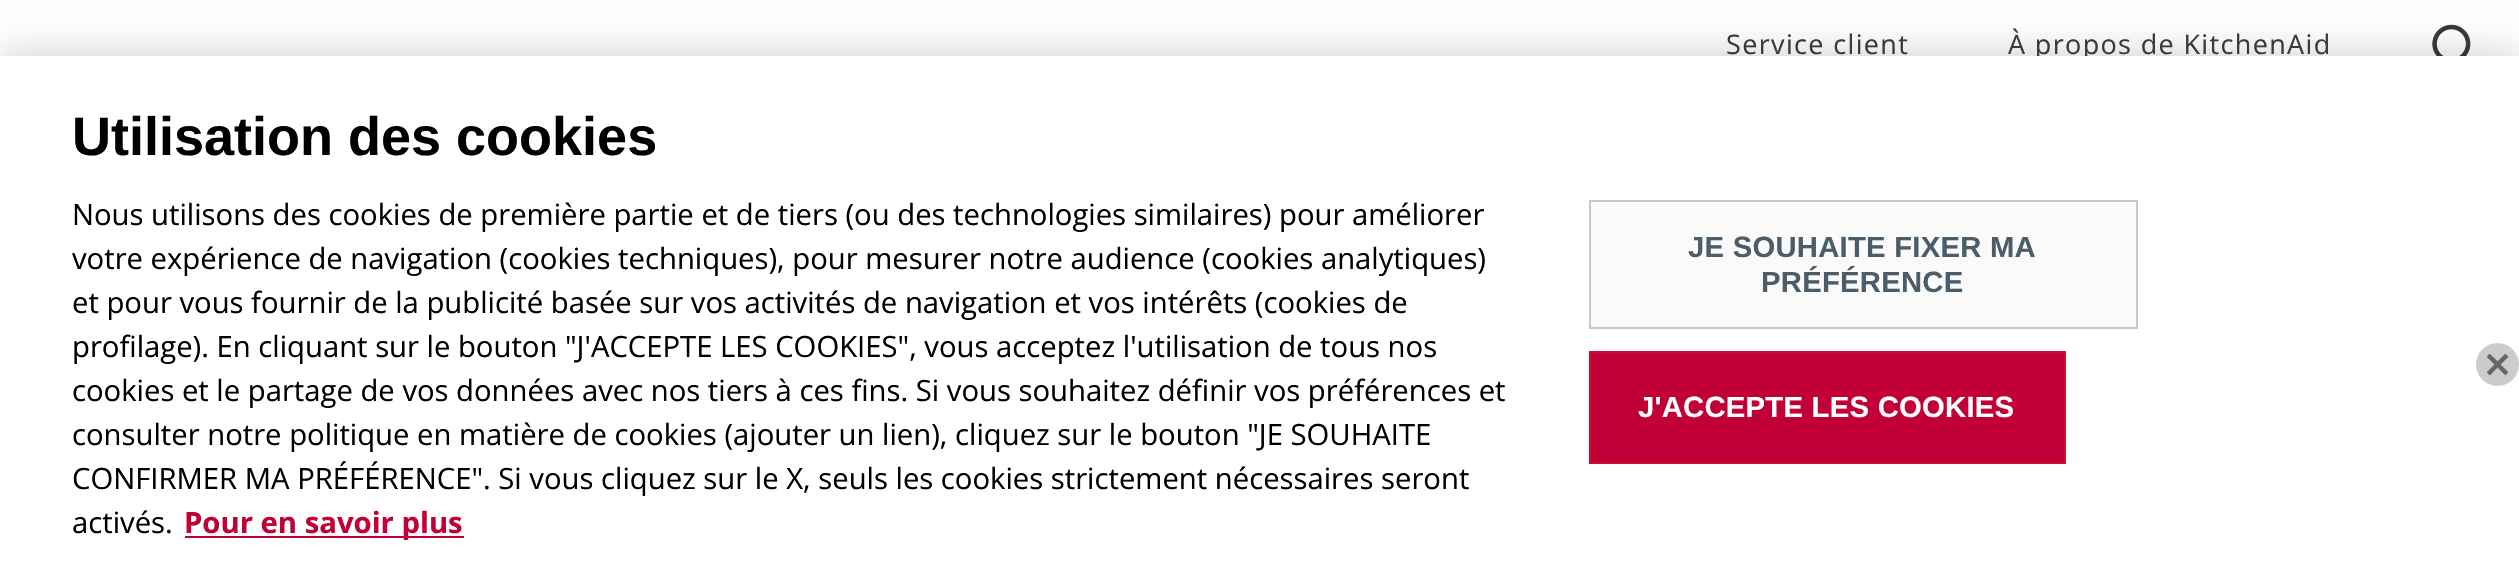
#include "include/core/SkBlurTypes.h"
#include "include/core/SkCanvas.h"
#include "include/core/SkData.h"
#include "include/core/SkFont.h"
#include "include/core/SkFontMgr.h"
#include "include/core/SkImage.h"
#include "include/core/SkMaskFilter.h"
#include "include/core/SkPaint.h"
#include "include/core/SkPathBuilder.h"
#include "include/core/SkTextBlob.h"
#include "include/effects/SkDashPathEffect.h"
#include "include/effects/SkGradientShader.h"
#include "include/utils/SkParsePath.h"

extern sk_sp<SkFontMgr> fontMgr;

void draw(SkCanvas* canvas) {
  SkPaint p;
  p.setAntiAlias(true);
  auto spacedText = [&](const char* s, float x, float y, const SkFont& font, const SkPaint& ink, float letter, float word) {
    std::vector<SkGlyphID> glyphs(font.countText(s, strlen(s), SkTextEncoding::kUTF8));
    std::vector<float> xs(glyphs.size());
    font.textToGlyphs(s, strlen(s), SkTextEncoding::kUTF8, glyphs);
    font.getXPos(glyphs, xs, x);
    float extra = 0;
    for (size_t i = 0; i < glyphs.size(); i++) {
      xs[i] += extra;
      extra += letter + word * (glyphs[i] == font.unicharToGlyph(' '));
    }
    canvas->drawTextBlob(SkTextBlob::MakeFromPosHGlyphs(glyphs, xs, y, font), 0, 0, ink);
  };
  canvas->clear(SK_ColorWHITE);
  canvas->drawImageRect(SkImages::DeferredFromEncodedData(SkData::MakeFromFileName("images/1.png")), SkRect::MakeLTRB(2432, 24, 2471, 56), SkSamplingOptions());
  p.setColor(SkColorSetARGB(51, 0, 0, 0));
  p.setMaskFilter(SkMaskFilter::MakeBlur(kNormal_SkBlurStyle, 20));
  canvas->drawRect(SkRect::MakeLTRB(0, 56, 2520, 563), p);
  p.setMaskFilter(nullptr);
  SkFont font1(fontMgr->matchFamilyStyle("Open Sans", SkFontStyle::Normal()), 27);
  font1.setSubpixel(true);
  p.setColor(SkColorSetRGB(62, 57, 54));
  spacedText("Service client", 1726, 54, font1, p, 1.35f, 0);
  spacedText("À propos de KitchenAid", 2008, 54, font1, p, 1.35f, 0);
  p.setColor(SK_ColorWHITE);
  canvas->drawRect(SkRect::MakeLTRB(0, 56, 2519, 561), p);
  SkFont font2(fontMgr->matchFamilyStyle("Liberation Sans", SkFontStyle::Bold()), 54);
  font2.setSubpixel(true);
  p.setColor(SK_ColorBLACK);
  canvas->drawString("Utilisation des cookies", 72, 155, font2, p);
  SkFont font3(fontMgr->matchFamilyStyle("Open Sans", SkFontStyle::Normal()), 29.25f);
  font3.setSubpixel(true);
  canvas->drawString("Nous utilisons des cookies de première partie et de tiers (ou des technologies similaires) pour améliorer", 72, 225, font3, p);
  canvas->drawString("votre expérience de navigation (cookies techniques), pour mesurer notre audience (cookies analytiques)", 72, 269, font3, p);
  canvas->drawString("et pour vous fournir de la publicité basée sur vos activités de navigation et vos intérêts (cookies de", 72, 313, font3, p);
  canvas->drawString("profilage). En cliquant sur le bouton \"J'ACCEPTE LES COOKIES\", vous acceptez l'utilisation de tous nos", 72, 357, font3, p);
  canvas->drawString("cookies et le partage de vos données avec nos tiers à ces fins. Si vous souhaitez définir vos préférences et", 72, 401, font3, p);
  canvas->drawString("consulter notre politique en matière de cookies (ajouter un lien), cliquez sur le bouton \"JE SOUHAITE", 72, 445, font3, p);
  canvas->drawString("CONFIRMER MA PRÉFÉRENCE\". Si vous cliquez sur le X, seuls les cookies strictement nécessaires seront", 72, 489, font3, p);
  canvas->drawString("activés.", 72, 533, font3, p);
  p.setColor(SkColorSetRGB(194, 0, 56));
  canvas->drawRect(SkRect::MakeLTRB(185, 536, 464, 538), p);
  SkFont font4(fontMgr->matchFamilyStyle("Open Sans", SkFontStyle::Bold()), 29.25f);
  font4.setSubpixel(true);
  canvas->drawString("Pour en savoir plus", 184, 533, font4, p);
  p.setColor(SkColorSetRGB(250, 250, 250));
  canvas->drawRect(SkRect::MakeLTRB(1590, 201, 2137, 328), p);
  p.setStyle(SkPaint::kStroke_Style);
  p.setStrokeWidth(2);
  p.setColor(SkColorSetRGB(200, 200, 200));
  canvas->drawRect(SkRect::MakeLTRB(1590, 201, 2137, 328), p);
  SkFont font5(fontMgr->matchFamilyStyle("Liberation Sans", SkFontStyle::Bold()), 29.25f);
  font5.setSubpixel(true);
  p.setStyle(SkPaint::kFill_Style);
  p.setColor(SkColorSetRGB(74, 93, 104));
  spacedText("JE SOUHAITE FIXER MA", 1688, 257, font5, p, 0.25f, 0);
  spacedText("PRÉFÉRENCE", 1761, 292, font5, p, 0.25f, 0);
  p.setColor(SkColorSetRGB(194, 0, 56));
  canvas->drawRect(SkRect::MakeLTRB(1590, 352, 2065, 463), p);
  p.setStyle(SkPaint::kStroke_Style);
  p.setColor(SkColorSetRGB(196, 18, 48));
  canvas->drawRect(SkRect::MakeLTRB(1590, 352, 2065, 463), p);
  p.setStyle(SkPaint::kFill_Style);
  p.setColor(SK_ColorWHITE);
  spacedText("J'ACCEPTE LES COOKIES", 1638, 417, font5, p, 0.25f, 0);
  canvas->drawImageRect(SkImages::DeferredFromEncodedData(SkData::MakeFromFileName("images/2.png")), SkRect::MakeLTRB(2476, 343, 2519, 386), SkSamplingOptions());
}
